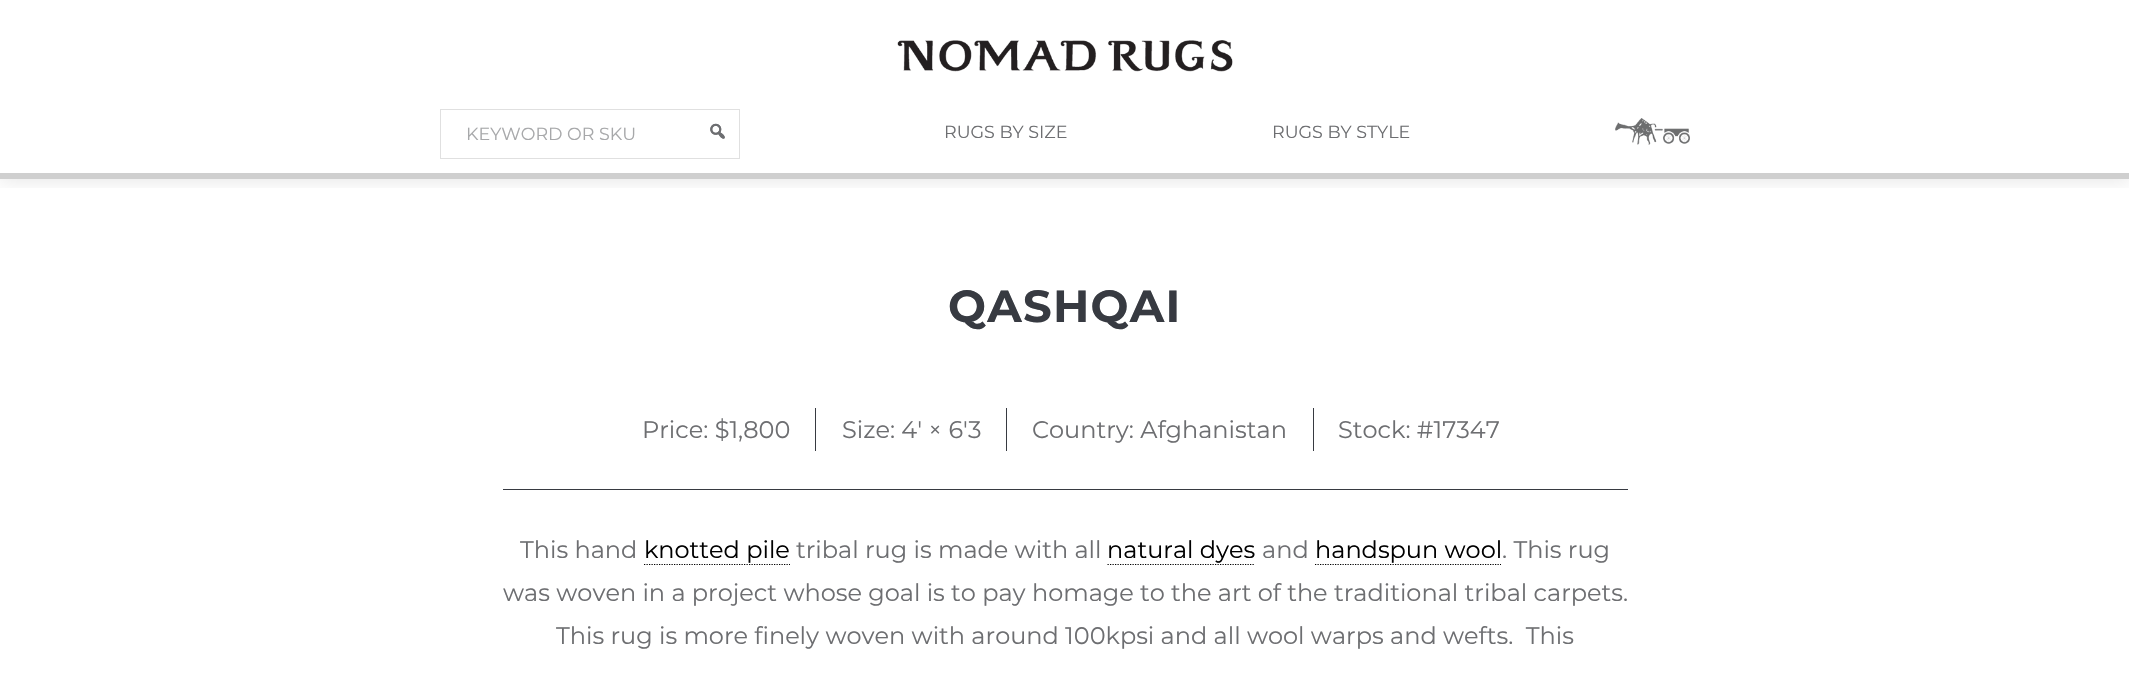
#include "include/core/SkBlurTypes.h"
#include "include/core/SkCanvas.h"
#include "include/core/SkData.h"
#include "include/core/SkFont.h"
#include "include/core/SkFontMgr.h"
#include "include/core/SkImage.h"
#include "include/core/SkMaskFilter.h"
#include "include/core/SkPaint.h"
#include "include/core/SkPathBuilder.h"
#include "include/core/SkTextBlob.h"
#include "include/effects/SkDashPathEffect.h"
#include "include/effects/SkGradientShader.h"
#include "include/utils/SkParsePath.h"

extern sk_sp<SkFontMgr> fontMgr;

void draw(SkCanvas* canvas) {
  SkPaint p;
  p.setAntiAlias(true);
  auto spacedText = [&](const char* s, float x, float y, const SkFont& font, const SkPaint& ink, float letter, float word) {
    std::vector<SkGlyphID> glyphs(font.countText(s, strlen(s), SkTextEncoding::kUTF8));
    std::vector<float> xs(glyphs.size());
    font.textToGlyphs(s, strlen(s), SkTextEncoding::kUTF8, glyphs);
    font.getXPos(glyphs, xs, x);
    float extra = 0;
    for (size_t i = 0; i < glyphs.size(); i++) {
      xs[i] += extra;
      extra += letter + word * (glyphs[i] == font.unicharToGlyph(' '));
    }
    canvas->drawTextBlob(SkTextBlob::MakeFromPosHGlyphs(glyphs, xs, y, font), 0, 0, ink);
  };
  canvas->clear(SK_ColorWHITE);
  canvas->save();
  canvas->clipRect(SkRect::MakeLTRB(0, 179, 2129, 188));
  p.setColor(SkColorSetARGB(26, 0, 0, 0));
  p.setMaskFilter(SkMaskFilter::MakeBlur(kNormal_SkBlurStyle, 9.5f));
  canvas->drawRect(SkRect::MakeLTRB(0, 1, 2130, 180), p);
  p.setMaskFilter(nullptr);
  canvas->restore();
  canvas->drawImageRect(SkImages::DeferredFromEncodedData(SkData::MakeFromFileName("images/1.png")), SkRect::MakeLTRB(897, 40, 1233, 72), SkSamplingOptions());
  p.setColor(SkColorSetRGB(207, 207, 207));
  canvas->drawRect(SkRect::MakeLTRB(0, 173, 2129, 179), p);
  p.setStyle(SkPaint::kStroke_Style);
  p.setStrokeWidth(1);
  p.setColor(SkColorSetRGB(224, 224, 224));
  canvas->drawRect(SkRect::MakeLTRB(440.5f, 109.5f, 739.5f, 158.5f), p);
  canvas->drawImageRect(SkImages::DeferredFromEncodedData(SkData::MakeFromFileName("images/2.png")), SkRect::MakeLTRB(710, 123, 725, 139), SkSamplingOptions());
  canvas->drawImageRect(SkImages::DeferredFromEncodedData(SkData::MakeFromFileName("images/3.png")), SkRect::MakeLTRB(710, 123, 725, 139), SkSamplingOptions());
  canvas->drawImageRect(SkImages::DeferredFromEncodedData(SkData::MakeFromFileName("images/4.png")), SkRect::MakeLTRB(1615, 118, 1690, 145), SkSamplingOptions());
  p.setStyle(SkPaint::kFill_Style);
  p.setColor(SkColorSetRGB(55, 58, 65));
  canvas->drawRect(SkRect::MakeLTRB(503, 489, 1628, 490), p);
  canvas->drawRect(SkRect::MakeLTRB(815, 408, 816, 451), p);
  canvas->drawRect(SkRect::MakeLTRB(1006, 408, 1007, 451), p);
  canvas->drawRect(SkRect::MakeLTRB(1313, 408, 1314, 451), p);
  p.setStyle(SkPaint::kStroke_Style);
  p.setStrokeWidth(1.2f);
  p.setColor(SK_ColorBLACK);
  p.setPathEffect(SkDashPathEffect::Make({{1.25f, 1.25f}}, 0));
  canvas->drawPath(SkPathBuilder().moveTo(644, 564.5f).lineTo(790, 564.5f).detach(), p);
  p.setPathEffect(nullptr);
  p.setPathEffect(SkDashPathEffect::Make({{1.25f, 1.25f}}, 0));
  canvas->drawPath(SkPathBuilder().moveTo(1107.5f, 564.5f).lineTo(1255, 564.5f).detach(), p);
  p.setPathEffect(nullptr);
  p.setPathEffect(SkDashPathEffect::Make({{1.25f, 1.25f}}, 0));
  canvas->drawPath(SkPathBuilder().moveTo(1315, 564.5f).lineTo(1501, 564.5f).detach(), p);
  p.setPathEffect(nullptr);
  SkFont font1(fontMgr->matchFamilyStyle("Montserrat", SkFontStyle(100, SkFontStyle::kNormal_Width, SkFontStyle::kUpright_Slant)), 17.5f);
  font1.setSubpixel(true);
  p.setStyle(SkPaint::kFill_Style);
  p.setColor(SkColorSetRGB(167, 168, 170));
  canvas->drawString("KEYWORD OR SKU", 466, 140, font1, p);
  p.setColor(SkColorSetRGB(109, 110, 113));
  canvas->drawString("RUGS BY SIZE", 944, 138, font1, p);
  canvas->drawString("RUGS BY STYLE", 1272, 138, font1, p);
  SkFont font2(fontMgr->matchFamilyStyle("Montserrat", SkFontStyle::Bold()), 45);
  font2.setSubpixel(true);
  p.setColor(SkColorSetRGB(55, 58, 65));
  spacedText("QASHQAI", 948, 322, font2, p, 1.25f, 0);
  SkFont font3(fontMgr->matchFamilyStyle("Montserrat", SkFontStyle(100, SkFontStyle::kNormal_Width, SkFontStyle::kUpright_Slant)), 24);
  font3.setSubpixel(true);
  p.setColor(SkColorSetRGB(109, 110, 113));
  canvas->drawString("Price: $1,800", 642, 438, font3, p);
  canvas->drawString("Size: 4' × 6'3", 842, 438, font3, p);
  canvas->drawString("Country: Afghanistan", 1032, 438, font3, p);
  canvas->drawString("Stock: #17347", 1338, 438, font3, p);
  canvas->drawString("This hand", 520, 558, font3, p);
  p.setColor(SK_ColorBLACK);
  canvas->drawString("knotted pile", 644, 558, font3, p);
  p.setColor(SkColorSetRGB(109, 110, 113));
  canvas->drawString("tribal rug is made with all", 796, 558, font3, p);
  p.setColor(SK_ColorBLACK);
  canvas->drawString("natural dyes", 1107, 558, font3, p);
  p.setColor(SkColorSetRGB(109, 110, 113));
  canvas->drawString("and", 1262, 558, font3, p);
  p.setColor(SK_ColorBLACK);
  canvas->drawString("handspun wool", 1315, 558, font3, p);
  p.setColor(SkColorSetRGB(109, 110, 113));
  canvas->drawString(". This rug", 1502, 558, font3, p);
  canvas->drawString("was woven in a project whose goal is to pay homage to the art of the traditional tribal carpets.", 503, 601, font3, p);
  canvas->drawString("This rug is more finely woven with around 100kpsi and all wool warps and wefts.  This", 556, 644, font3, p);
}
